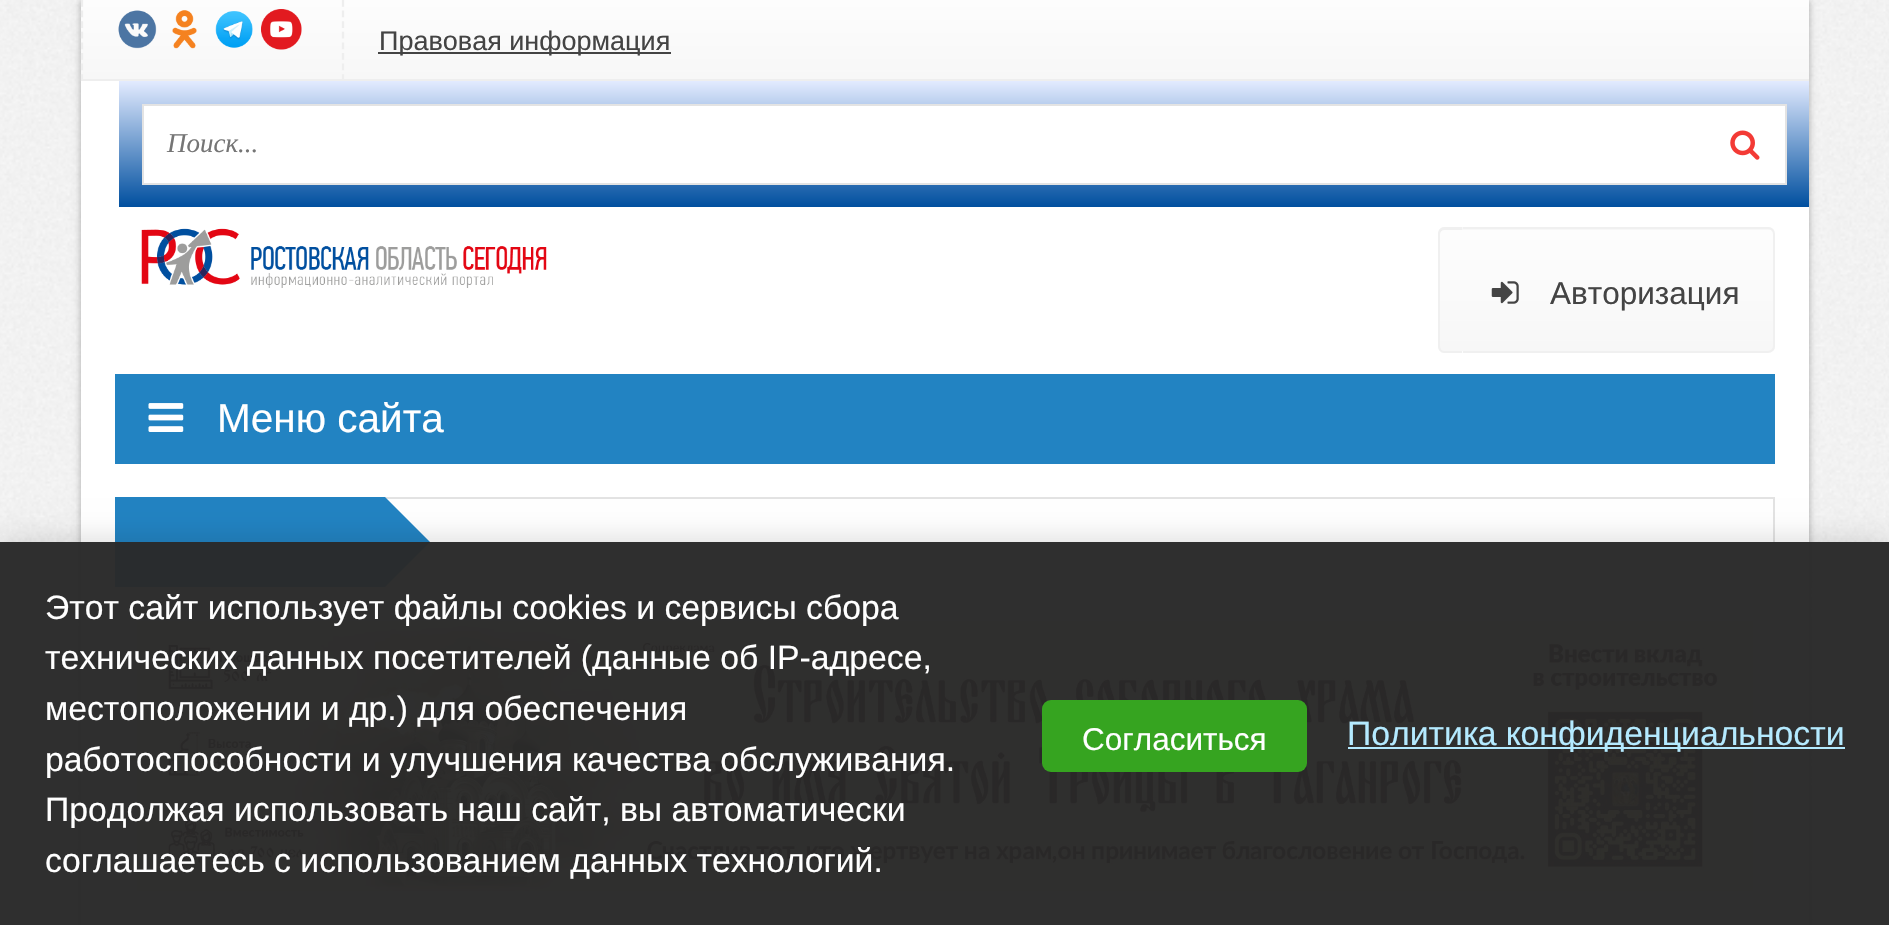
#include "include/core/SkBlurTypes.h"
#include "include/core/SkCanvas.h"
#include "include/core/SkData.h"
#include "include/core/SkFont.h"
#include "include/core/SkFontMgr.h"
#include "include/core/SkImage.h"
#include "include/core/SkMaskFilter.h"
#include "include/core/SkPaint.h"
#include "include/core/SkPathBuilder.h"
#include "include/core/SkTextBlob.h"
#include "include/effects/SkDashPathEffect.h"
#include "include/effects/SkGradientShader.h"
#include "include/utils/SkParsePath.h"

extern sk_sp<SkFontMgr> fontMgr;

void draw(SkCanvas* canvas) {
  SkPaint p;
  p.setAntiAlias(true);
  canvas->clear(SK_ColorWHITE);
  canvas->drawImageRect(SkImages::DeferredFromEncodedData(SkData::MakeFromFileName("images/1.png")), SkRect::MakeLTRB(0, 0, 1889, 925), SkSamplingOptions());
  p.setColor(SkColorSetARGB(77, 0, 0, 0));
  p.setMaskFilter(SkMaskFilter::MakeBlur(kNormal_SkBlurStyle, 3.5f));
  canvas->drawRect(SkRect::MakeLTRB(81, 0, 1809, 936), p);
  p.setMaskFilter(nullptr);
  p.setColor(SK_ColorWHITE);
  canvas->drawRect(SkRect::MakeLTRB(81, 81, 1809, 925), p);
  {
    const SkColor colors[] = {SkColorSetRGB(253, 253, 253), SkColorSetRGB(247, 247, 247)};
    const float stops[] = {0, 1};
    const SkPoint ends[] = {{945, 0}, {945, 79}};
    p.setShader(SkGradientShader::MakeLinear(ends, colors, stops, 2, SkTileMode::kClamp));
    p.setAlpha(255);
  }
  canvas->drawRect(SkRect::MakeLTRB(81, 0, 1809, 79), p);
  p.setShader(nullptr);
  p.setColor(SkColorSetRGB(238, 238, 238));
  canvas->drawRect(SkRect::MakeLTRB(81, 79, 1809, 81), p);
  p.setStyle(SkPaint::kStroke_Style);
  p.setStrokeWidth(2.2f);
  p.setPathEffect(SkDashPathEffect::Make({{6.75f, 3.85f}}, 0));
  canvas->drawPath(SkPathBuilder().moveTo(82, 0).lineTo(82, 81).detach(), p);
  p.setPathEffect(nullptr);
  canvas->drawImageRect(SkImages::DeferredFromEncodedData(SkData::MakeFromFileName("images/2.png")), SkRect::MakeLTRB(118, 10, 157, 49), SkSamplingOptions());
  canvas->drawImageRect(SkImages::DeferredFromEncodedData(SkData::MakeFromFileName("images/3.png")), SkRect::MakeLTRB(172, 10, 197, 49), SkSamplingOptions());
  canvas->drawImageRect(SkImages::DeferredFromEncodedData(SkData::MakeFromFileName("images/4.png")), SkRect::MakeLTRB(215, 11, 253, 48), SkSamplingOptions());
  canvas->drawImageRect(SkImages::DeferredFromEncodedData(SkData::MakeFromFileName("images/5.png")), SkRect::MakeLTRB(261, 9, 302, 50), SkSamplingOptions());
  p.setPathEffect(SkDashPathEffect::Make({{6.75f, 3.85f}}, 0));
  canvas->drawPath(SkPathBuilder().moveTo(343, 0).lineTo(343, 81).detach(), p);
  p.setPathEffect(nullptr);
  p.setStyle(SkPaint::kFill_Style);
  p.setColor(SkColorSetRGB(68, 68, 68));
  canvas->drawRect(SkRect::MakeLTRB(378, 52, 671, 54), p);
  {
    const SkColor colors[] = {SkColorSetRGB(227, 235, 255), SkColorSetRGB(0, 79, 159)};
    const float stops[] = {0, 1};
    const SkPoint ends[] = {{964, 81}, {964, 207}};
    p.setShader(SkGradientShader::MakeLinear(ends, colors, stops, 2, SkTileMode::kClamp));
    p.setAlpha(255);
  }
  canvas->drawRect(SkRect::MakeLTRB(119, 81, 1809, 207), p);
  p.setShader(nullptr);
  p.setColor(SK_ColorWHITE);
  canvas->drawRect(SkRect::MakeLTRB(143, 105, 1786, 184), p);
  p.setStyle(SkPaint::kStroke_Style);
  p.setStrokeWidth(2);
  p.setColor(SkColorSetRGB(227, 227, 227));
  canvas->drawRect(SkRect::MakeLTRB(143, 105, 1786, 184), p);
  canvas->drawImageRect(SkImages::DeferredFromEncodedData(SkData::MakeFromFileName("images/6.png")), SkRect::MakeLTRB(1730, 130, 1760, 160), SkSamplingOptions());
  canvas->drawImageRect(SkImages::DeferredFromEncodedData(SkData::MakeFromFileName("images/7.png")), SkRect::MakeLTRB(141, 228, 547, 288), SkSamplingOptions());
  canvas->save();
  canvas->clipPath(SkPathBuilder().moveTo(1463, 227).lineTo(1768, 227).cubicTo(1772, 227, 1775, 230, 1775, 234).lineTo(1775, 346).cubicTo(1775, 350, 1772, 353, 1768, 353).lineTo(1463, 353).cubicTo(1459, 353, 1456, 350, 1456, 346).lineTo(1456, 234).cubicTo(1456, 230, 1459, 227, 1463, 227).close().detach(), true);
  p.setStyle(SkPaint::kFill_Style);
  {
    const SkColor colors[] = {SkColorSetRGB(253, 253, 253), SkColorSetRGB(247, 247, 247)};
    const float stops[] = {0, 1};
    const SkPoint ends[] = {{1616, 108}, {1616, 230}};
    p.setShader(SkGradientShader::MakeLinear(ends, colors, stops, 2, SkTileMode::kClamp));
    p.setAlpha(255);
  }
  canvas->drawRect(SkRect::MakeLTRB(1456, 227, 1775, 230), p);
  {
    const SkColor colors[] = {SkColorSetRGB(253, 253, 253), SkColorSetRGB(247, 247, 247)};
    const float stops[] = {0, 1};
    const SkPoint ends[] = {{1616, 230}, {1616, 351}};
    p.setShader(SkGradientShader::MakeLinear(ends, colors, stops, 2, SkTileMode::kClamp));
    p.setAlpha(255);
  }
  canvas->drawRect(SkRect::MakeLTRB(1463, 230, 1775, 351), p);
  canvas->restore();
  p.setStyle(SkPaint::kStroke_Style);
  p.setShader(nullptr);
  p.setColor(SkColorSetRGB(240, 240, 240));
  canvas->drawRoundRect(SkRect::MakeLTRB(1457, 228, 1774, 352), 6, 6, p);
  canvas->save();
  canvas->clipPath(SkPathBuilder().moveTo(1445, 227).lineTo(1463, 227).lineTo(1463, 353).lineTo(1445, 353).cubicTo(1441, 353, 1438, 350, 1438, 346).lineTo(1438, 234).cubicTo(1438, 230, 1441, 227, 1445, 227).close().detach(), true);
  p.setStyle(SkPaint::kFill_Style);
  {
    const SkColor colors[] = {SkColorSetRGB(253, 253, 253), SkColorSetRGB(247, 247, 247)};
    const float stops[] = {0, 1};
    const SkPoint ends[] = {{1451, 108}, {1451, 230}};
    p.setShader(SkGradientShader::MakeLinear(ends, colors, stops, 2, SkTileMode::kClamp));
    p.setAlpha(255);
  }
  canvas->drawRect(SkRect::MakeLTRB(1438, 227, 1463, 230), p);
  {
    const SkColor colors[] = {SkColorSetRGB(253, 253, 253), SkColorSetRGB(247, 247, 247)};
    const float stops[] = {0, 1};
    const SkPoint ends[] = {{1451, 230}, {1451, 351}};
    p.setShader(SkGradientShader::MakeLinear(ends, colors, stops, 2, SkTileMode::kClamp));
    p.setAlpha(255);
  }
  canvas->drawRect(SkRect::MakeLTRB(1438, 230, 1463, 351), p);
  {
    const SkColor colors[] = {SkColorSetRGB(253, 253, 253), SkColorSetRGB(247, 247, 247)};
    const float stops[] = {0, 1};
    const SkPoint ends[] = {{1451, 351}, {1451, 473}};
    p.setShader(SkGradientShader::MakeLinear(ends, colors, stops, 2, SkTileMode::kClamp));
    p.setAlpha(255);
  }
  canvas->drawRect(SkRect::MakeLTRB(1438, 351, 1463, 353), p);
  canvas->restore();
  p.setShader(nullptr);
  p.setColor(SkColorSetRGB(240, 240, 240));
  canvas->drawPath(SkPathBuilder(SkPathFillType::kEvenOdd).moveTo(1444, 227).lineTo(1462, 227).lineTo(1462, 353).lineTo(1444, 353).cubicTo(1441, 353, 1438, 350, 1438, 346).lineTo(1438, 234).cubicTo(1438, 230, 1441, 227, 1444, 227).close().moveTo(1444, 230).lineTo(1462, 230).lineTo(1462, 351).lineTo(1444, 351).cubicTo(1442, 351, 1440, 349, 1440, 346).lineTo(1440, 234).cubicTo(1440, 232, 1442, 230, 1444, 230).close().detach(), p);
  canvas->drawImageRect(SkImages::DeferredFromEncodedData(SkData::MakeFromFileName("images/8.png")), SkRect::MakeLTRB(1491, 281, 1519, 304), SkSamplingOptions());
  p.setColor(SkColorSetRGB(34, 131, 194));
  canvas->drawRect(SkRect::MakeLTRB(115, 374, 1775, 464), p);
  canvas->drawImageRect(SkImages::DeferredFromEncodedData(SkData::MakeFromFileName("images/9.png")), SkRect::MakeLTRB(148, 403, 184, 432), SkSamplingOptions());
  p.setStyle(SkPaint::kStroke_Style);
  p.setColor(SkColorSetRGB(227, 227, 227));
  canvas->drawRect(SkRect::MakeLTRB(116, 498, 1774, 586), p);
  p.setStyle(SkPaint::kFill_Style);
  p.setColor(SkColorSetRGB(34, 131, 194));
  canvas->drawRect(SkRect::MakeLTRB(115, 497, 385, 587), p);
  canvas->drawPath(SkPathBuilder().moveTo(385, 587).lineTo(385, 497).lineTo(430, 542).close().detach(), p);
  canvas->drawImageRect(SkImages::DeferredFromEncodedData(SkData::MakeFromFileName("images/10.png")), SkRect::MakeLTRB(137, 621, 1753, 891), SkSamplingOptions());
  canvas->save();
  canvas->clipPath(SkPathBuilder(SkPathFillType::kEvenOdd).moveTo(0, 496).lineTo(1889, 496).lineTo(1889, 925).lineTo(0, 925).close().moveTo(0, 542).lineTo(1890, 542).lineTo(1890, 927).lineTo(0, 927).close().detach(), true);
  p.setColor(SkColorSetARGB(33, 0, 0, 0));
  p.setMaskFilter(SkMaskFilter::MakeBlur(kNormal_SkBlurStyle, 13.5f));
  canvas->drawRect(SkRect::MakeLTRB(0, 538, 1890, 923), p);
  p.setMaskFilter(nullptr);
  canvas->restore();
  p.setColor(SkColorSetARGB(247, 40, 40, 40));
  canvas->drawRect(SkRect::MakeLTRB(0, 542, 1889, 925), p);
  p.setColor(SkColorSetRGB(54, 164, 32));
  canvas->drawRoundRect(SkRect::MakeLTRB(1042, 700, 1307, 772), 9, 9, p);
  p.setColor(SkColorSetRGB(180, 234, 255));
  canvas->drawRect(SkRect::MakeLTRB(1348, 747, 1845, 749), p);
  SkFont font1(fontMgr->matchFamilyStyle("Liberation Sans", SkFontStyle::Normal()), 27);
  font1.setSubpixel(true);
  p.setColor(SkColorSetRGB(68, 68, 68));
  canvas->drawString("Правовая информация", 379, 50, font1, p);
  SkFont font2(fontMgr->matchFamilyStyle("Liberation Serif", SkFontStyle::Italic()), 27);
  font2.setSubpixel(true);
  p.setColor(SkColorSetRGB(117, 117, 117));
  canvas->drawString("Поиск...", 167, 152, font2, p);
  SkFont font3(fontMgr->matchFamilyStyle("Liberation Sans", SkFontStyle::Normal()), 31.5f);
  font3.setSubpixel(true);
  p.setColor(SkColorSetRGB(68, 68, 68));
  canvas->drawString("Авторизация", 1550, 304, font3, p);
  SkFont font4(fontMgr->matchFamilyStyle("Liberation Sans", SkFontStyle::Normal()), 40.5f);
  font4.setSubpixel(true);
  p.setColor(SK_ColorWHITE);
  canvas->drawString("Меню сайта", 217, 432, font4, p);
  SkFont font5(fontMgr->matchFamilyStyle("Liberation Sans", SkFontStyle::Normal()), 33.75f);
  font5.setSubpixel(true);
  canvas->drawString("Этот сайт использует файлы cookies и сервисы сбора", 45, 619, font5, p);
  canvas->drawString("технических данных посетителей (данные об IP-адресе,", 45, 669, font5, p);
  canvas->drawString("местоположении и др.) для обеспечения", 45, 720, font5, p);
  canvas->drawString("работоспособности и улучшения качества обслуживания.", 45, 771, font5, p);
  canvas->drawString("Продолжая использовать наш сайт, вы автоматически", 45, 821, font5, p);
  canvas->drawString("соглашаетесь с использованием данных технологий.", 45, 872, font5, p);
  canvas->drawString("Согласиться", 1082, 750, font3, p);
  p.setColor(SkColorSetRGB(180, 234, 255));
  canvas->drawString("Политика конфиденциальности", 1347, 745, font5, p);
}
